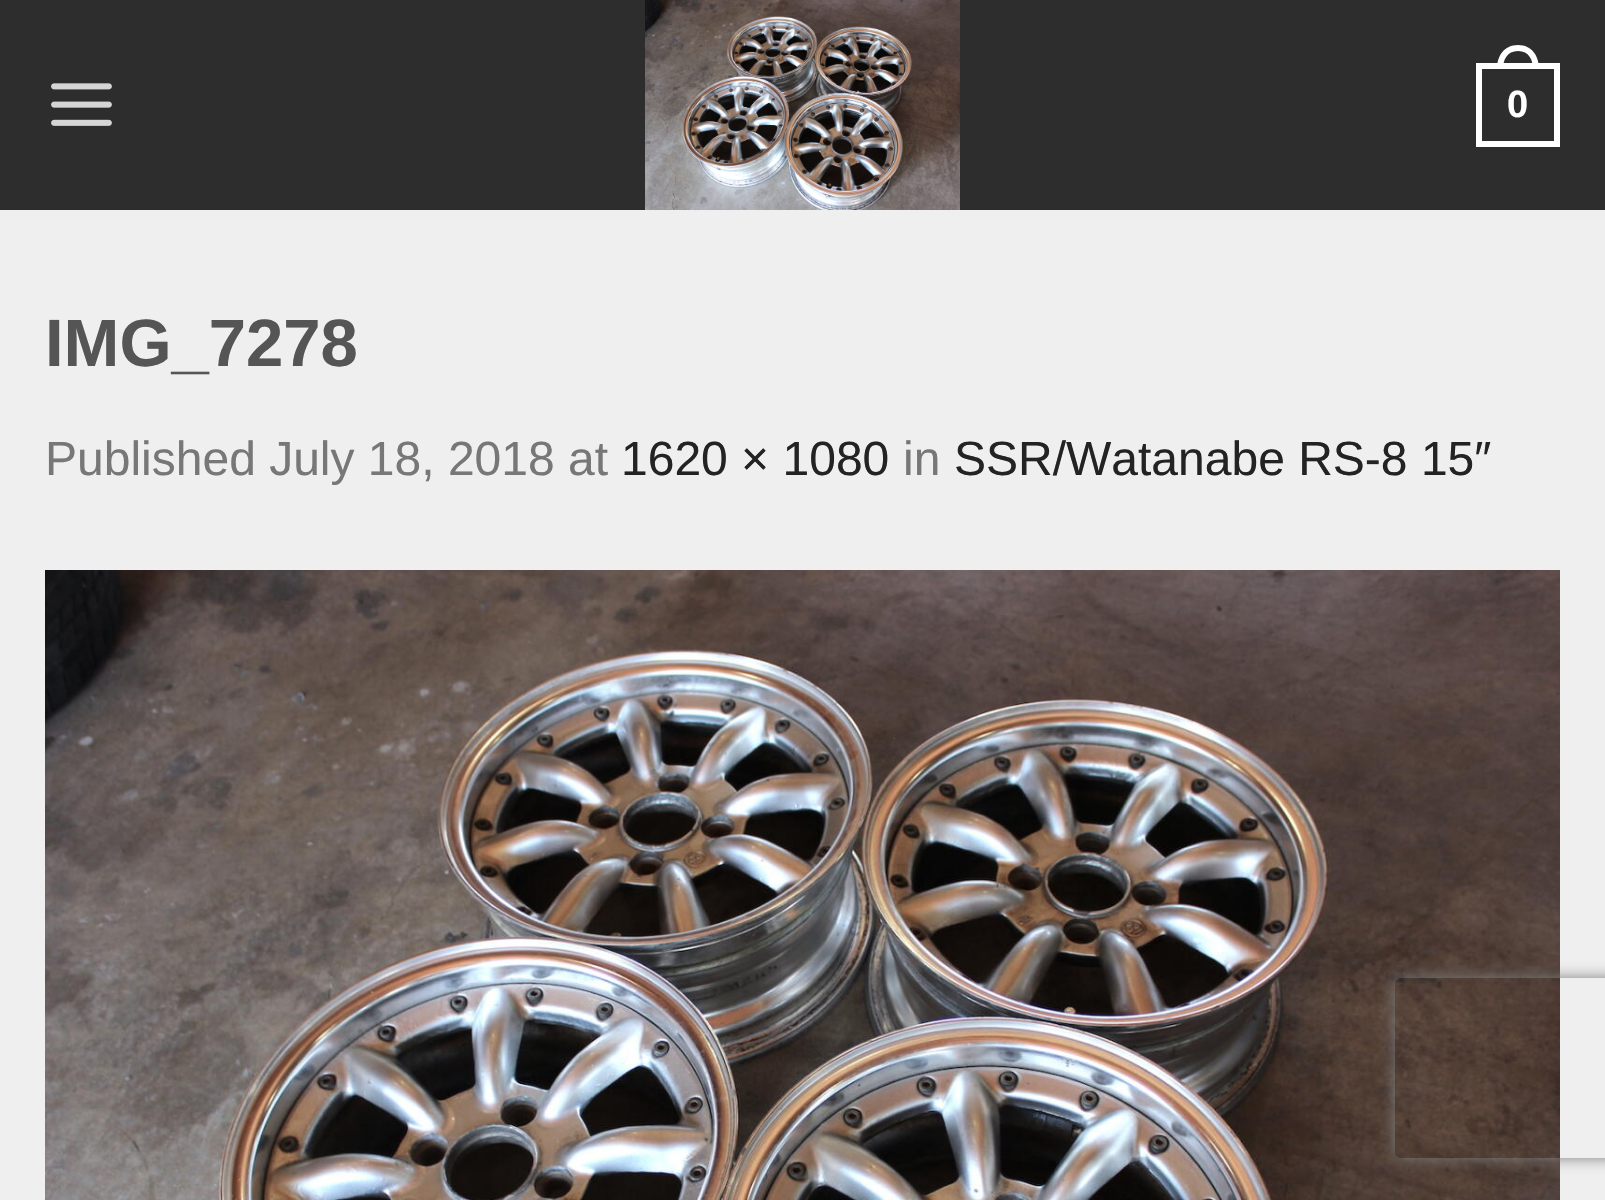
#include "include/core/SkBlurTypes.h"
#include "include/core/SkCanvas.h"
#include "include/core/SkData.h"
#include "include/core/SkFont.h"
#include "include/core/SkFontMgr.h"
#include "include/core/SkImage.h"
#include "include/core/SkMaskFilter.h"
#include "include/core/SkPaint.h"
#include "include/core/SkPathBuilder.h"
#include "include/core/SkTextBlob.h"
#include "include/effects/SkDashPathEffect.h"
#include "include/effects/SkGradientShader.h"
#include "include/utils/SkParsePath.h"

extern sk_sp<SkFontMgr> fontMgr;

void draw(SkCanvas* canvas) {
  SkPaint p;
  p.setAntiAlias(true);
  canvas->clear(SkColorSetRGB(239, 239, 239));
  p.setColor(SkColorSetRGB(45, 45, 45));
  canvas->drawRect(SkRect::MakeLTRB(0, 0, 1605, 210), p);
  canvas->drawImageRect(SkImages::DeferredFromEncodedData(SkData::MakeFromFileName("images/1.png")), SkRect::MakeLTRB(51, 83, 112, 126), SkSamplingOptions());
  canvas->drawImageRect(SkImages::DeferredFromEncodedData(SkData::MakeFromFileName("images/2.png")), SkRect::MakeLTRB(645, 0, 960, 210), SkSamplingOptions());
  p.setStyle(SkPaint::kStroke_Style);
  p.setStrokeWidth(6);
  p.setColor(SK_ColorWHITE);
  canvas->drawRect(SkRect::MakeLTRB(1479, 66, 1557, 144), p);
  p.setStyle(SkPaint::kFill_Style);
  canvas->drawPath(SkPathBuilder(SkPathFillType::kEvenOdd).moveTo(1518, 45).cubicTo(1532, 45, 1539, 56, 1539, 69).lineTo(1497, 69).cubicTo(1497, 56, 1504, 45, 1518, 45).close().moveTo(1518, 51).cubicTo(1529, 51, 1533, 60, 1533, 69).lineTo(1503, 69).cubicTo(1503, 60, 1507, 51, 1518, 51).close().detach(), p);
  canvas->drawImageRect(SkImages::DeferredFromEncodedData(SkData::MakeFromFileName("images/3.png")), SkRect::MakeLTRB(45, 570, 1560, 1200), SkSamplingOptions());
  canvas->save();
  canvas->clipPath(SkPathBuilder(SkPathFillType::kEvenOdd).moveTo(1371, 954).lineTo(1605, 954).lineTo(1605, 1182).lineTo(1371, 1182).close().moveTo(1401, 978).lineTo(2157, 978).cubicTo(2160.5f, 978, 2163, 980.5f, 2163, 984).lineTo(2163, 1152).cubicTo(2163, 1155.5f, 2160.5f, 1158, 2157, 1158).lineTo(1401, 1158).cubicTo(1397.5f, 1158, 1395, 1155.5f, 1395, 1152).lineTo(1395, 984).cubicTo(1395, 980.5f, 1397.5f, 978, 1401, 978).close().detach(), true);
  p.setColor(SkColorSetRGB(128, 128, 128));
  p.setMaskFilter(SkMaskFilter::MakeBlur(kNormal_SkBlurStyle, 7.5f));
  canvas->drawRoundRect(SkRect::MakeLTRB(1395, 978, 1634, 1158), 6, 6, p);
  p.setMaskFilter(nullptr);
  canvas->restore();
  SkFont font1(fontMgr->matchFamilyStyle("Liberation Sans", SkFontStyle::Bold()), 38);
  font1.setSubpixel(true);
  p.setColor(SK_ColorWHITE);
  canvas->drawString("0", 1507, 117, font1, p);
  SkFont font2(fontMgr->matchFamilyStyle("Liberation Sans", SkFontStyle::Bold()), 67);
  font2.setSubpixel(true);
  p.setColor(SkColorSetRGB(85, 85, 85));
  canvas->drawString("IMG_7278", 45, 366, font2, p);
  SkFont font3(fontMgr->matchFamilyStyle("Liberation Sans", SkFontStyle::Normal()), 48);
  font3.setSubpixel(true);
  p.setColor(SkColorSetRGB(119, 119, 119));
  canvas->drawString("Published July 18, 2018 at", 45, 475, font3, p);
  p.setColor(SkColorSetRGB(35, 35, 35));
  canvas->drawString("1620 × 1080", 621, 475, font3, p);
  p.setColor(SkColorSetRGB(119, 119, 119));
  canvas->drawString("in", 903, 475, font3, p);
  p.setColor(SkColorSetRGB(35, 35, 35));
  canvas->drawString("SSR/Watanabe RS-8 15″", 954, 475, font3, p);
}
